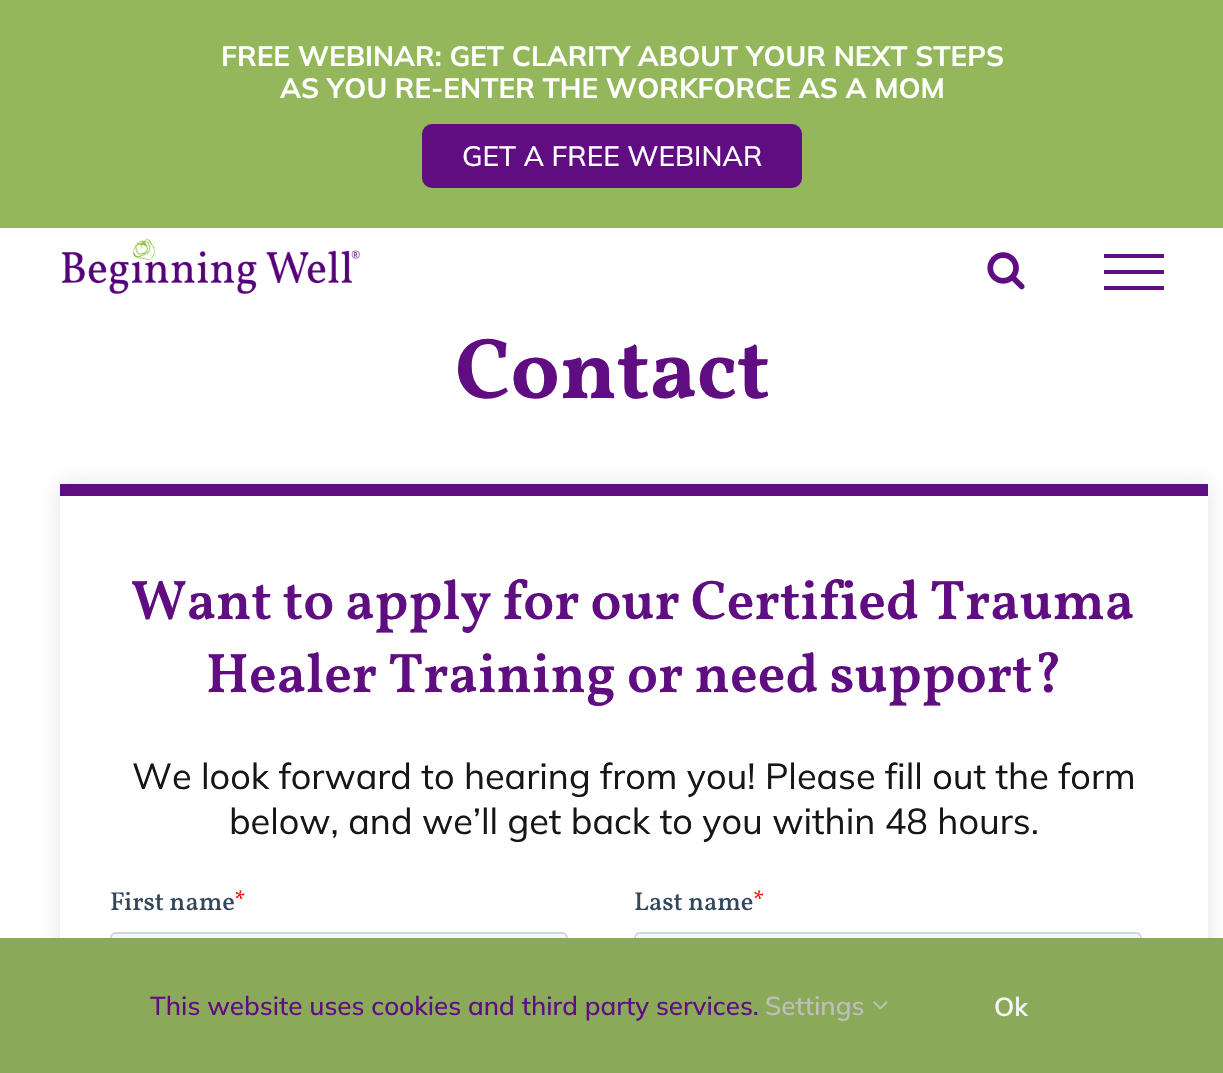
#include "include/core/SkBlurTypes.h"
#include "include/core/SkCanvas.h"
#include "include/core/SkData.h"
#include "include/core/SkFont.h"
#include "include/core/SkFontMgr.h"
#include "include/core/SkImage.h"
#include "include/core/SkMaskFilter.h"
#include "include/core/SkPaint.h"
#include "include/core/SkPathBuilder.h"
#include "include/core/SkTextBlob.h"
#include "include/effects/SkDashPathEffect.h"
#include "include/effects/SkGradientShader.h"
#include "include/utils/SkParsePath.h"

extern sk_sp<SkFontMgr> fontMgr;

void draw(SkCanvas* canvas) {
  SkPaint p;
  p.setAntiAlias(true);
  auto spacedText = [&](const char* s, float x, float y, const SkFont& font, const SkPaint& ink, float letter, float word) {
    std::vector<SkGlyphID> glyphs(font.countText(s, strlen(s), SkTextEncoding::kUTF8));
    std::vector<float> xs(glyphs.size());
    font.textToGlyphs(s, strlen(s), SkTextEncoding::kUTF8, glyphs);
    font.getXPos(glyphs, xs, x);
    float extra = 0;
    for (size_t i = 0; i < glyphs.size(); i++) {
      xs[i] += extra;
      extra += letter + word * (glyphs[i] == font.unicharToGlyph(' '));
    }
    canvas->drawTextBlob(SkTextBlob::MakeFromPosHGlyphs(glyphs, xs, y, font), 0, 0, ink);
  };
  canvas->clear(SK_ColorWHITE);
  p.setColor(SkColorSetRGB(148, 183, 91));
  canvas->drawRect(SkRect::MakeLTRB(0, 0, 1223, 228), p);
  p.setColor(SkColorSetRGB(97, 13, 130));
  canvas->drawRoundRect(SkRect::MakeLTRB(422, 124, 802, 188), 10, 10, p);
  canvas->drawImageRect(SkImages::DeferredFromEncodedData(SkData::MakeFromFileName("images/1.png")), SkRect::MakeLTRB(61, 238, 360, 294), SkSamplingOptions());
  canvas->drawImageRect(SkImages::DeferredFromEncodedData(SkData::MakeFromFileName("images/2.png")), SkRect::MakeLTRB(987, 252, 1025, 290), SkSamplingOptions());
  canvas->drawRect(SkRect::MakeLTRB(1104, 254, 1164, 258), p);
  canvas->drawRect(SkRect::MakeLTRB(1104, 270, 1164, 274), p);
  canvas->drawRect(SkRect::MakeLTRB(1104, 286, 1164, 290), p);
  canvas->save();
  canvas->clipPath(SkPathBuilder(SkPathFillType::kEvenOdd).moveTo(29, 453).lineTo(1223, 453).lineTo(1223, 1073).lineTo(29, 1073).close().moveTo(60, 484).lineTo(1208, 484).lineTo(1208, 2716).lineTo(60, 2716).close().detach(), true);
  p.setColor(SkColorSetARGB(28, 0, 0, 0));
  p.setMaskFilter(SkMaskFilter::MakeBlur(kNormal_SkBlurStyle, 10));
  canvas->drawRect(SkRect::MakeLTRB(60, 484, 1208, 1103), p);
  p.setMaskFilter(nullptr);
  canvas->restore();
  p.setColor(SkColorSetRGB(97, 13, 130));
  canvas->drawRect(SkRect::MakeLTRB(60, 484, 1208, 496), p);
  canvas->drawImageRect(SkImages::DeferredFromEncodedData(SkData::MakeFromFileName("images/3.png")), SkRect::MakeLTRB(110, 890, 1142, 938), SkSamplingOptions());
  p.setColor(SkColorSetRGB(139, 170, 89));
  canvas->drawRect(SkRect::MakeLTRB(0, 938, 1223, 1073), p);
  canvas->drawImageRect(SkImages::DeferredFromEncodedData(SkData::MakeFromFileName("images/4.png")), SkRect::MakeLTRB(873, 1001, 888, 1010), SkSamplingOptions());
  SkFont font1(fontMgr->matchFamilyStyle("Mulish", SkFontStyle::Bold()), 28);
  font1.setSubpixel(true);
  p.setColor(SK_ColorWHITE);
  canvas->drawString("FREE WEBINAR: GET CLARITY ABOUT YOUR NEXT STEPS", 221, 66, font1, p);
  canvas->drawString("AS YOU RE-ENTER THE WORKFORCE AS A MOM", 280, 98, font1, p);
  SkFont font2(fontMgr->matchFamilyStyle("Mulish", SkFontStyle(500, SkFontStyle::kNormal_Width, SkFontStyle::kUpright_Slant)), 28);
  font2.setSubpixel(true);
  canvas->drawString("GET A FREE WEBINAR", 462, 166, font2, p);
  SkFont font3(fontMgr->matchFamilyStyle("Vollkorn", SkFontStyle::Bold()), 86.5f);
  font3.setSubpixel(true);
  p.setColor(SkColorSetRGB(97, 13, 130));
  canvas->drawString("Contact", 455, 398, font3, p);
  SkFont font4(fontMgr->matchFamilyStyle("Vollkorn", SkFontStyle(600, SkFontStyle::kNormal_Width, SkFontStyle::kUpright_Slant)), 55.8f);
  font4.setSubpixel(true);
  spacedText("Want to apply for our Certified Trauma", 131, 619, font4, p, 0, -0.25f);
  canvas->drawString("Healer Training or need support?", 206, 692, font4, p);
  SkFont font5(fontMgr->matchFamilyStyle("Mulish", SkFontStyle::Normal()), 36);
  font5.setSubpixel(true);
  p.setColor(SkColorSetRGB(22, 22, 22));
  canvas->drawString("We look forward to hearing from you! Please fill out the form", 132, 789, font5, p);
  canvas->drawString("below, and we’ll get back to you within 48 hours.", 229, 834, font5, p);
  SkFont font6(fontMgr->matchFamilyStyle("Mulish", SkFontStyle(500, SkFontStyle::kNormal_Width, SkFontStyle::kUpright_Slant)), 26);
  font6.setSubpixel(true);
  p.setColor(SkColorSetRGB(97, 13, 130));
  canvas->drawString("This website uses cookies and third party services.", 150, 1015, font6, p);
  p.setColor(SkColorSetRGB(191, 191, 191));
  canvas->drawString("Settings", 765, 1015, font6, p);
  SkFont font7(fontMgr->matchFamilyStyle("Mulish", SkFontStyle(600, SkFontStyle::kNormal_Width, SkFontStyle::kUpright_Slant)), 26);
  font7.setSubpixel(true);
  p.setColor(SkColorSetRGB(250, 245, 253));
  canvas->drawString("Ok", 994, 1016, font7, p);
}
